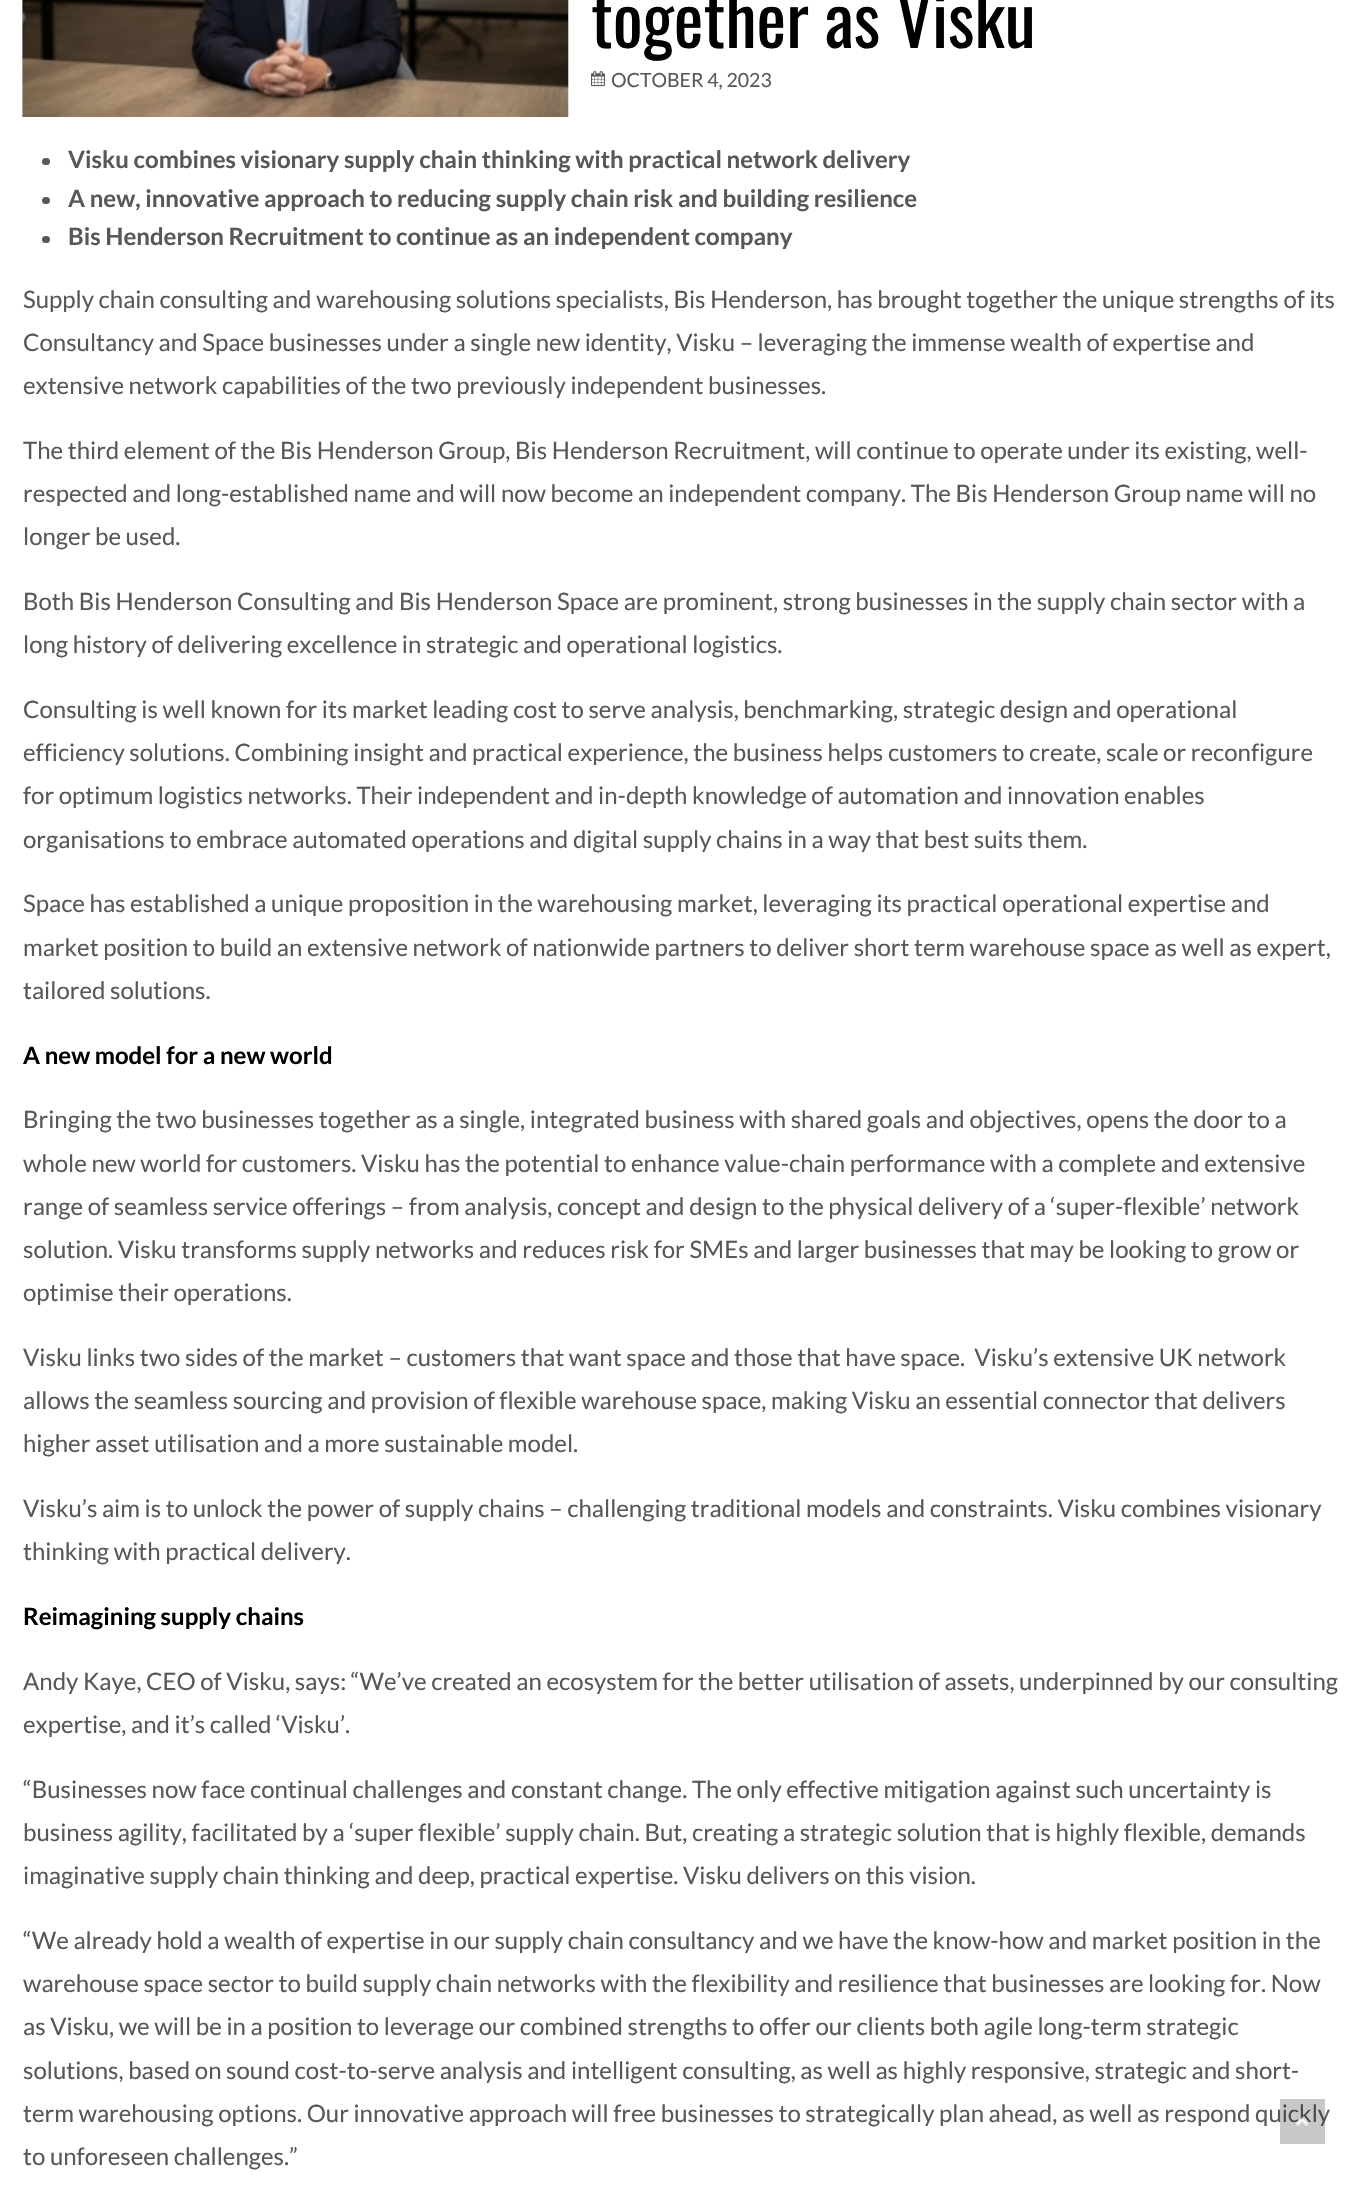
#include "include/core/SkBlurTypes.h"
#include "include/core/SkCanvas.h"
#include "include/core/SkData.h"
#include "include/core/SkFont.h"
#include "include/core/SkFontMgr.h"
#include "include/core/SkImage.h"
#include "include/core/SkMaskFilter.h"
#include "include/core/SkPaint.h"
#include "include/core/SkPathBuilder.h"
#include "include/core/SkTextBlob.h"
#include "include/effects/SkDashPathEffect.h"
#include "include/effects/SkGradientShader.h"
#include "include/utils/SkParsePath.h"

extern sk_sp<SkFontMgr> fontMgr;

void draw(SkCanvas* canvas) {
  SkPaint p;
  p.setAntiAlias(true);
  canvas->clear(SK_ColorWHITE);
  canvas->drawImageRect(SkImages::DeferredFromEncodedData(SkData::MakeFromFileName("images/1.png")), SkRect::MakeLTRB(22, 0, 23, 117), SkSamplingOptions());
  p.setColor(SkColorSetRGB(250, 250, 250));
  canvas->drawRect(SkRect::MakeLTRB(568, 0, 569, 117), p);
  canvas->drawImageRect(SkImages::DeferredFromEncodedData(SkData::MakeFromFileName("images/2.png")), SkRect::MakeLTRB(22, 0, 569, 117), SkSamplingOptions());
  canvas->drawImageRect(SkImages::DeferredFromEncodedData(SkData::MakeFromFileName("images/3.png")), SkRect::MakeLTRB(591, 71, 605, 87), SkSamplingOptions());
  p.setColor(SkColorSetRGB(89, 88, 88));
  canvas->drawRoundRect(SkRect::MakeLTRB(42, 158, 50, 165), 3.5f, 3.5f, p);
  canvas->drawRoundRect(SkRect::MakeLTRB(42, 197, 50, 204), 3.5f, 3.5f, p);
  canvas->drawRoundRect(SkRect::MakeLTRB(42, 236, 50, 243), 3.5f, 3.5f, p);
  SkFont font1(fontMgr->matchFamilyStyle("Oswald", SkFontStyle::Normal()), 70.5f);
  font1.setSubpixel(true);
  p.setColor(SK_ColorBLACK);
  canvas->drawString("together as Visku", 591, 48, font1, p);
  SkFont font2(fontMgr->matchFamilyStyle("Lato", SkFontStyle::Normal()), 19.5f);
  font2.setSubpixel(true);
  p.setColor(SkColorSetRGB(89, 88, 88));
  canvas->drawString("OCTOBER 4, 2023", 611, 87, font2, p);
  SkFont font3(fontMgr->matchFamilyStyle("Lato", SkFontStyle::Bold()), 24);
  font3.setSubpixel(true);
  canvas->drawString("Visku combines visionary supply chain thinking with practical network delivery", 68, 168, font3, p);
  canvas->drawString("A new, innovative approach to reducing supply chain risk and building resilience", 68, 207, font3, p);
  canvas->drawString("Bis Henderson Recruitment to continue as an independent company", 68, 245, font3, p);
  SkFont font4(fontMgr->matchFamilyStyle("Lato", SkFontStyle::Normal()), 24);
  font4.setSubpixel(true);
  canvas->drawString("Supply chain consulting and warehousing solutions specialists, Bis Henderson, has brought together the unique strengths of its", 23, 308, font4, p);
  canvas->drawString("Consultancy and Space businesses under a single new identity, Visku – leveraging the immense wealth of expertise and", 23, 351, font4, p);
  canvas->drawString("extensive network capabilities of the two previously independent businesses.", 23, 394, font4, p);
  canvas->drawString("The third element of the Bis Henderson Group, Bis Henderson Recruitment, will continue to operate under its existing, well-", 23, 459, font4, p);
  canvas->drawString("respected and long-established name and will now become an independent company. The Bis Henderson Group name will no", 23, 502, font4, p);
  canvas->drawString("longer be used.", 23, 545, font4, p);
  canvas->drawString("Both Bis Henderson Consulting and Bis Henderson Space are prominent, strong businesses in the supply chain sector with a", 23, 610, font4, p);
  canvas->drawString("long history of delivering excellence in strategic and operational logistics.", 23, 653, font4, p);
  canvas->drawString("Consulting is well known for its market leading cost to serve analysis, benchmarking, strategic design and operational", 23, 718, font4, p);
  canvas->drawString("efficiency solutions. Combining insight and practical experience, the business helps customers to create, scale or reconfigure", 23, 761, font4, p);
  canvas->drawString("for optimum logistics networks. Their independent and in-depth knowledge of automation and innovation enables", 23, 804, font4, p);
  canvas->drawString("organisations to embrace automated operations and digital supply chains in a way that best suits them.", 23, 848, font4, p);
  canvas->drawString("Space has established a unique proposition in the warehousing market, leveraging its practical operational expertise and", 23, 912, font4, p);
  canvas->drawString("market position to build an extensive network of nationwide partners to deliver short term warehouse space as well as expert,", 23, 956, font4, p);
  canvas->drawString("tailored solutions.", 23, 999, font4, p);
  p.setColor(SK_ColorBLACK);
  canvas->drawString("A new model for a new world", 23, 1064, font3, p);
  p.setColor(SkColorSetRGB(89, 88, 88));
  canvas->drawString("Bringing the two businesses together as a single, integrated business with shared goals and objectives, opens the door to a", 23, 1128, font4, p);
  canvas->drawString("whole new world for customers. Visku has the potential to enhance value-chain performance with a complete and extensive", 23, 1172, font4, p);
  canvas->drawString("range of seamless service offerings – from analysis, concept and design to the physical delivery of a ‘super-flexible’ network", 23, 1215, font4, p);
  canvas->drawString("solution. Visku transforms supply networks and reduces risk for SMEs and larger businesses that may be looking to grow or", 23, 1258, font4, p);
  canvas->drawString("optimise their operations.", 23, 1301, font4, p);
  canvas->drawString("Visku links two sides of the market – customers that want space and those that have space.  Visku’s extensive UK network", 23, 1366, font4, p);
  canvas->drawString("allows the seamless sourcing and provision of flexible warehouse space, making Visku an essential connector that delivers", 23, 1409, font4, p);
  canvas->drawString("higher asset utilisation and a more sustainable model.", 23, 1452, font4, p);
  canvas->drawString("Visku’s aim is to unlock the power of supply chains – challenging traditional models and constraints. Visku combines visionary", 23, 1517, font4, p);
  canvas->drawString("thinking with practical delivery.", 23, 1560, font4, p);
  p.setColor(SK_ColorBLACK);
  canvas->drawString("Reimagining supply chains", 23, 1625, font3, p);
  p.setColor(SkColorSetRGB(89, 88, 88));
  canvas->drawString("Andy Kaye, CEO of Visku, says: “We’ve created an ecosystem for the better utilisation of assets, underpinned by our consulting", 23, 1690, font4, p);
  canvas->drawString("expertise, and it’s called ‘Visku’.", 23, 1733, font4, p);
  canvas->drawString("“Businesses now face continual challenges and constant change. The only effective mitigation against such uncertainty is", 23, 1798, font4, p);
  canvas->drawString("business agility, facilitated by a ‘super flexible’ supply chain. But, creating a strategic solution that is highly flexible, demands", 23, 1841, font4, p);
  canvas->drawString("imaginative supply chain thinking and deep, practical expertise. Visku delivers on this vision.", 23, 1884, font4, p);
  canvas->drawString("“We already hold a wealth of expertise in our supply chain consultancy and we have the know-how and market position in the", 23, 1949, font4, p);
  canvas->drawString("warehouse space sector to build supply chain networks with the flexibility and resilience that businesses are looking for. Now", 23, 1992, font4, p);
  canvas->drawString("as Visku, we will be in a position to leverage our combined strengths to offer our clients both agile long-term strategic", 23, 2035, font4, p);
  canvas->drawString("solutions, based on sound cost-to-serve analysis and intelligent consulting, as well as highly responsive, strategic and short-", 23, 2079, font4, p);
  canvas->drawString("term warehousing options. Our innovative approach will free businesses to strategically plan ahead, as well as respond quickly", 23, 2122, font4, p);
  canvas->drawString("to unforeseen challenges.”", 23, 2165, font4, p);
  p.setColor(SkColorSetARGB(64, 30, 34, 36));
  canvas->drawRect(SkRect::MakeLTRB(1280, 2099, 1325, 2144), p);
  canvas->drawImageRect(SkImages::DeferredFromEncodedData(SkData::MakeFromFileName("images/4.png")), SkRect::MakeLTRB(1295, 2116, 1309, 2126), SkSamplingOptions());
}
